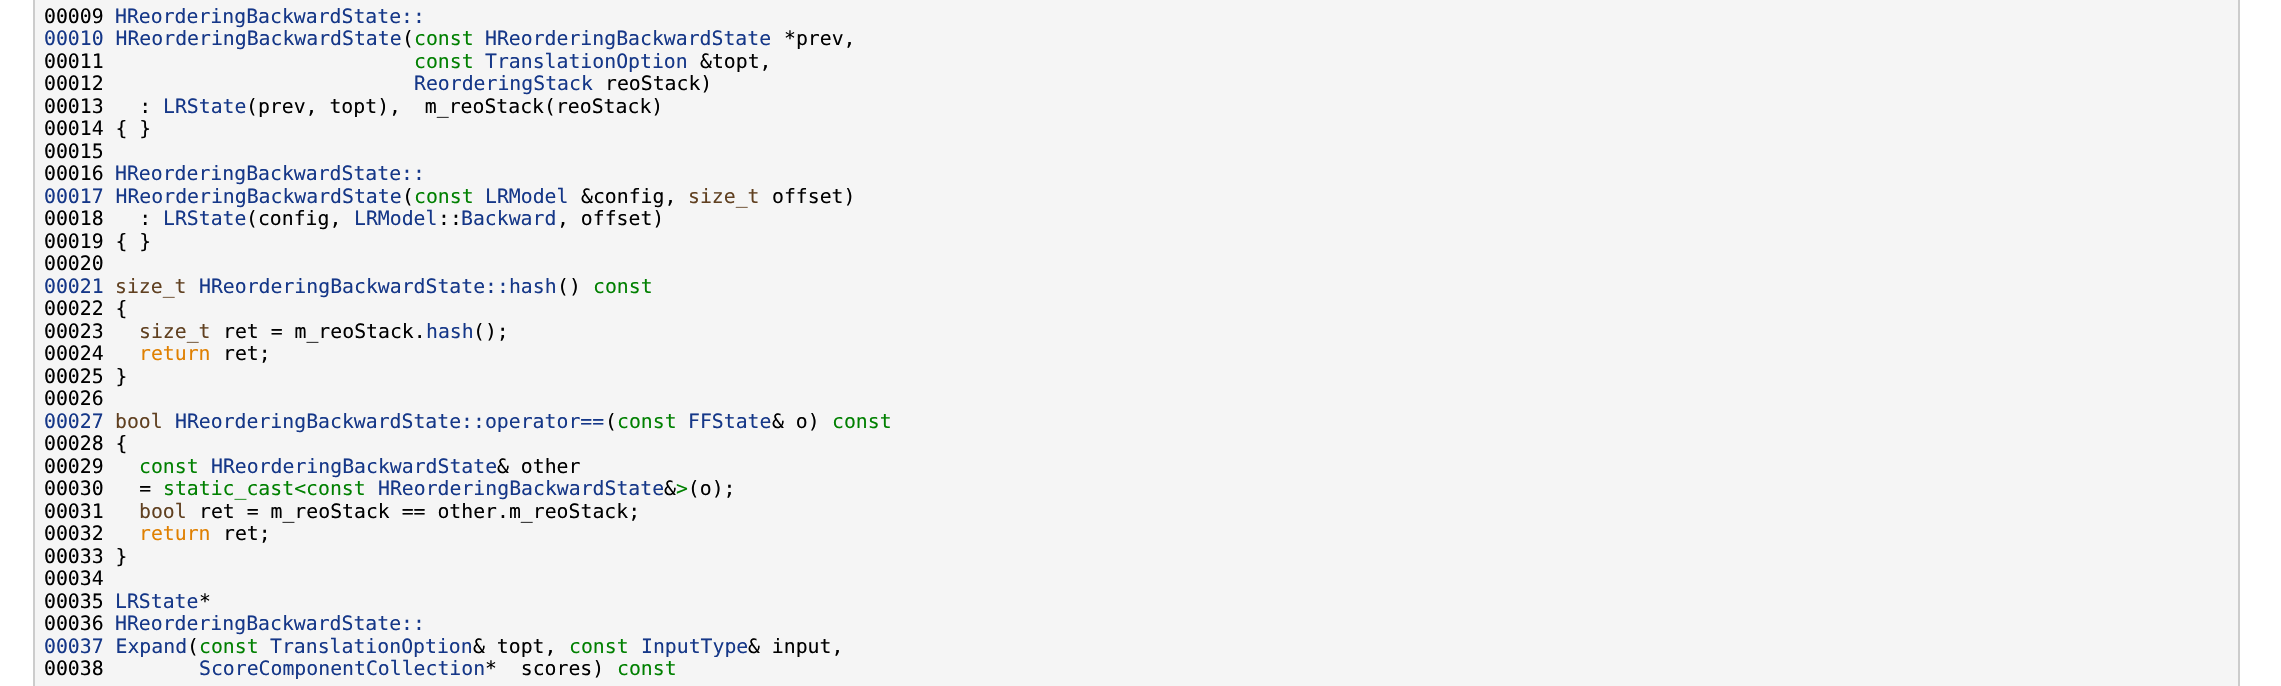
#include "include/core/SkBlurTypes.h"
#include "include/core/SkCanvas.h"
#include "include/core/SkData.h"
#include "include/core/SkFont.h"
#include "include/core/SkFontMgr.h"
#include "include/core/SkImage.h"
#include "include/core/SkMaskFilter.h"
#include "include/core/SkPaint.h"
#include "include/core/SkPathBuilder.h"
#include "include/core/SkTextBlob.h"
#include "include/effects/SkDashPathEffect.h"
#include "include/effects/SkGradientShader.h"
#include "include/utils/SkParsePath.h"

extern sk_sp<SkFontMgr> fontMgr;

void draw(SkCanvas* canvas) {
  SkPaint p;
  p.setAntiAlias(true);
  canvas->clear(SK_ColorWHITE);
  p.setColor(SkColorSetRGB(245, 245, 245));
  canvas->drawRect(SkRect::MakeLTRB(34, -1, 2239, 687), p);
  p.setStyle(SkPaint::kStroke_Style);
  p.setStrokeWidth(2);
  p.setColor(SkColorSetRGB(204, 204, 204));
  canvas->drawRect(SkRect::MakeLTRB(34, -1, 2239, 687), p);
  SkFont font1(fontMgr->matchFamilyStyle("DejaVu Sans Mono", SkFontStyle::Normal()), 19.8f);
  font1.setSubpixel(true);
  p.setStyle(SkPaint::kFill_Style);
  p.setColor(SK_ColorBLACK);
  canvas->drawString("00009", 44, 23, font1, p);
  p.setColor(SkColorSetRGB(21, 55, 136));
  canvas->drawString("HReorderingBackwardState::", 115, 23, font1, p);
  canvas->drawString("00010 HReorderingBackwardState", 44, 45, font1, p);
  p.setColor(SK_ColorBLACK);
  canvas->drawString("(", 402, 45, font1, p);
  p.setColor(SkColorSetRGB(0, 128, 0));
  canvas->drawString("const", 414, 45, font1, p);
  p.setColor(SkColorSetRGB(21, 55, 136));
  canvas->drawString("HReorderingBackwardState", 485, 45, font1, p);
  p.setColor(SK_ColorBLACK);
  canvas->drawString("*prev,", 784, 45, font1, p);
  canvas->drawString("00011", 44, 68, font1, p);
  p.setColor(SkColorSetRGB(0, 128, 0));
  canvas->drawString("const", 414, 68, font1, p);
  p.setColor(SkColorSetRGB(21, 55, 136));
  canvas->drawString("TranslationOption", 485, 68, font1, p);
  p.setColor(SK_ColorBLACK);
  canvas->drawString("&topt,", 700, 68, font1, p);
  canvas->drawString("00012", 44, 90, font1, p);
  p.setColor(SkColorSetRGB(21, 55, 136));
  canvas->drawString("ReorderingStack", 414, 90, font1, p);
  p.setColor(SK_ColorBLACK);
  canvas->drawString("reoStack)", 605, 90, font1, p);
  canvas->drawString("00013   :", 44, 113, font1, p);
  p.setColor(SkColorSetRGB(21, 55, 136));
  canvas->drawString("LRState", 163, 113, font1, p);
  p.setColor(SK_ColorBLACK);
  canvas->drawString("(prev, topt),  m_reoStack(reoStack)", 246, 113, font1, p);
  canvas->drawString("00014 { }", 44, 135, font1, p);
  canvas->drawString("00015", 44, 158, font1, p);
  canvas->drawString("00016", 44, 180, font1, p);
  p.setColor(SkColorSetRGB(21, 55, 136));
  canvas->drawString("HReorderingBackwardState::", 115, 180, font1, p);
  canvas->drawString("00017 HReorderingBackwardState", 44, 203, font1, p);
  p.setColor(SK_ColorBLACK);
  canvas->drawString("(", 402, 203, font1, p);
  p.setColor(SkColorSetRGB(0, 128, 0));
  canvas->drawString("const", 414, 203, font1, p);
  p.setColor(SkColorSetRGB(21, 55, 136));
  canvas->drawString("LRModel", 485, 203, font1, p);
  p.setColor(SK_ColorBLACK);
  canvas->drawString("&config,", 581, 203, font1, p);
  p.setColor(SkColorSetRGB(96, 64, 32));
  canvas->drawString("size_t", 688, 203, font1, p);
  p.setColor(SK_ColorBLACK);
  canvas->drawString("offset)", 772, 203, font1, p);
  canvas->drawString("00018   :", 44, 225, font1, p);
  p.setColor(SkColorSetRGB(21, 55, 136));
  canvas->drawString("LRState", 163, 225, font1, p);
  p.setColor(SK_ColorBLACK);
  canvas->drawString("(config,", 246, 225, font1, p);
  p.setColor(SkColorSetRGB(21, 55, 136));
  canvas->drawString("LRModel", 354, 225, font1, p);
  p.setColor(SK_ColorBLACK);
  canvas->drawString("::", 438, 225, font1, p);
  p.setColor(SkColorSetRGB(21, 55, 136));
  canvas->drawString("Backward", 461, 225, font1, p);
  p.setColor(SK_ColorBLACK);
  canvas->drawString(", offset)", 557, 225, font1, p);
  canvas->drawString("00019 { }", 44, 248, font1, p);
  canvas->drawString("00020", 44, 270, font1, p);
  p.setColor(SkColorSetRGB(21, 55, 136));
  canvas->drawString("00021", 44, 293, font1, p);
  p.setColor(SkColorSetRGB(96, 64, 32));
  canvas->drawString("size_t", 115, 293, font1, p);
  p.setColor(SkColorSetRGB(21, 55, 136));
  canvas->drawString("HReorderingBackwardState::hash", 199, 293, font1, p);
  p.setColor(SK_ColorBLACK);
  canvas->drawString("()", 557, 293, font1, p);
  p.setColor(SkColorSetRGB(0, 128, 0));
  canvas->drawString("const", 593, 293, font1, p);
  p.setColor(SK_ColorBLACK);
  canvas->drawString("00022 {", 44, 315, font1, p);
  canvas->drawString("00023", 44, 338, font1, p);
  p.setColor(SkColorSetRGB(96, 64, 32));
  canvas->drawString("size_t", 139, 338, font1, p);
  p.setColor(SK_ColorBLACK);
  canvas->drawString("ret = m_reoStack.", 223, 338, font1, p);
  p.setColor(SkColorSetRGB(21, 55, 136));
  canvas->drawString("hash", 426, 338, font1, p);
  p.setColor(SK_ColorBLACK);
  canvas->drawString("();", 473, 338, font1, p);
  canvas->drawString("00024", 44, 360, font1, p);
  p.setColor(SkColorSetRGB(224, 128, 0));
  canvas->drawString("return", 139, 360, font1, p);
  p.setColor(SK_ColorBLACK);
  canvas->drawString("ret;", 223, 360, font1, p);
  canvas->drawString("00025 }", 44, 383, font1, p);
  canvas->drawString("00026", 44, 405, font1, p);
  p.setColor(SkColorSetRGB(21, 55, 136));
  canvas->drawString("00027", 44, 428, font1, p);
  p.setColor(SkColorSetRGB(96, 64, 32));
  canvas->drawString("bool", 115, 428, font1, p);
  p.setColor(SkColorSetRGB(21, 55, 136));
  canvas->drawString("HReorderingBackwardState::operator==", 175, 428, font1, p);
  p.setColor(SK_ColorBLACK);
  canvas->drawString("(", 605, 428, font1, p);
  p.setColor(SkColorSetRGB(0, 128, 0));
  canvas->drawString("const", 617, 428, font1, p);
  p.setColor(SkColorSetRGB(21, 55, 136));
  canvas->drawString("FFState", 688, 428, font1, p);
  p.setColor(SK_ColorBLACK);
  canvas->drawString("& o)", 772, 428, font1, p);
  p.setColor(SkColorSetRGB(0, 128, 0));
  canvas->drawString("const", 832, 428, font1, p);
  p.setColor(SK_ColorBLACK);
  canvas->drawString("00028 {", 44, 450, font1, p);
  canvas->drawString("00029", 44, 473, font1, p);
  p.setColor(SkColorSetRGB(0, 128, 0));
  canvas->drawString("const", 139, 473, font1, p);
  p.setColor(SkColorSetRGB(21, 55, 136));
  canvas->drawString("HReorderingBackwardState", 211, 473, font1, p);
  p.setColor(SK_ColorBLACK);
  canvas->drawString("& other", 497, 473, font1, p);
  canvas->drawString("00030   =", 44, 495, font1, p);
  p.setColor(SkColorSetRGB(0, 128, 0));
  canvas->drawString("static_cast<const", 163, 495, font1, p);
  p.setColor(SkColorSetRGB(21, 55, 136));
  canvas->drawString("HReorderingBackwardState", 378, 495, font1, p);
  p.setColor(SK_ColorBLACK);
  canvas->drawString("& (o);", 664, 495, font1, p);
  p.setColor(SkColorSetRGB(0, 128, 0));
  canvas->drawString(">", 676, 495, font1, p);
  p.setColor(SK_ColorBLACK);
  canvas->drawString("00031", 44, 518, font1, p);
  p.setColor(SkColorSetRGB(96, 64, 32));
  canvas->drawString("bool", 139, 518, font1, p);
  p.setColor(SK_ColorBLACK);
  canvas->drawString("ret = m_reoStack == other.m_reoStack;", 199, 518, font1, p);
  canvas->drawString("00032", 44, 540, font1, p);
  p.setColor(SkColorSetRGB(224, 128, 0));
  canvas->drawString("return", 139, 540, font1, p);
  p.setColor(SK_ColorBLACK);
  canvas->drawString("ret;", 223, 540, font1, p);
  canvas->drawString("00033 }", 44, 563, font1, p);
  canvas->drawString("00034", 44, 585, font1, p);
  canvas->drawString("00035", 44, 608, font1, p);
  p.setColor(SkColorSetRGB(21, 55, 136));
  canvas->drawString("LRState", 115, 608, font1, p);
  p.setColor(SK_ColorBLACK);
  canvas->drawString("*", 199, 608, font1, p);
  canvas->drawString("00036", 44, 630, font1, p);
  p.setColor(SkColorSetRGB(21, 55, 136));
  canvas->drawString("HReorderingBackwardState::", 115, 630, font1, p);
  canvas->drawString("00037 Expand", 44, 653, font1, p);
  p.setColor(SK_ColorBLACK);
  canvas->drawString("(", 187, 653, font1, p);
  p.setColor(SkColorSetRGB(0, 128, 0));
  canvas->drawString("const", 199, 653, font1, p);
  p.setColor(SkColorSetRGB(21, 55, 136));
  canvas->drawString("TranslationOption", 270, 653, font1, p);
  p.setColor(SK_ColorBLACK);
  canvas->drawString("& topt,", 473, 653, font1, p);
  p.setColor(SkColorSetRGB(0, 128, 0));
  canvas->drawString("const", 569, 653, font1, p);
  p.setColor(SkColorSetRGB(21, 55, 136));
  canvas->drawString("InputType", 641, 653, font1, p);
  p.setColor(SK_ColorBLACK);
  canvas->drawString("& input,", 748, 653, font1, p);
  canvas->drawString("00038", 44, 675, font1, p);
  p.setColor(SkColorSetRGB(21, 55, 136));
  canvas->drawString("ScoreComponentCollection", 199, 675, font1, p);
  p.setColor(SK_ColorBLACK);
  canvas->drawString("*  scores)", 485, 675, font1, p);
  p.setColor(SkColorSetRGB(0, 128, 0));
  canvas->drawString("const", 617, 675, font1, p);
}
